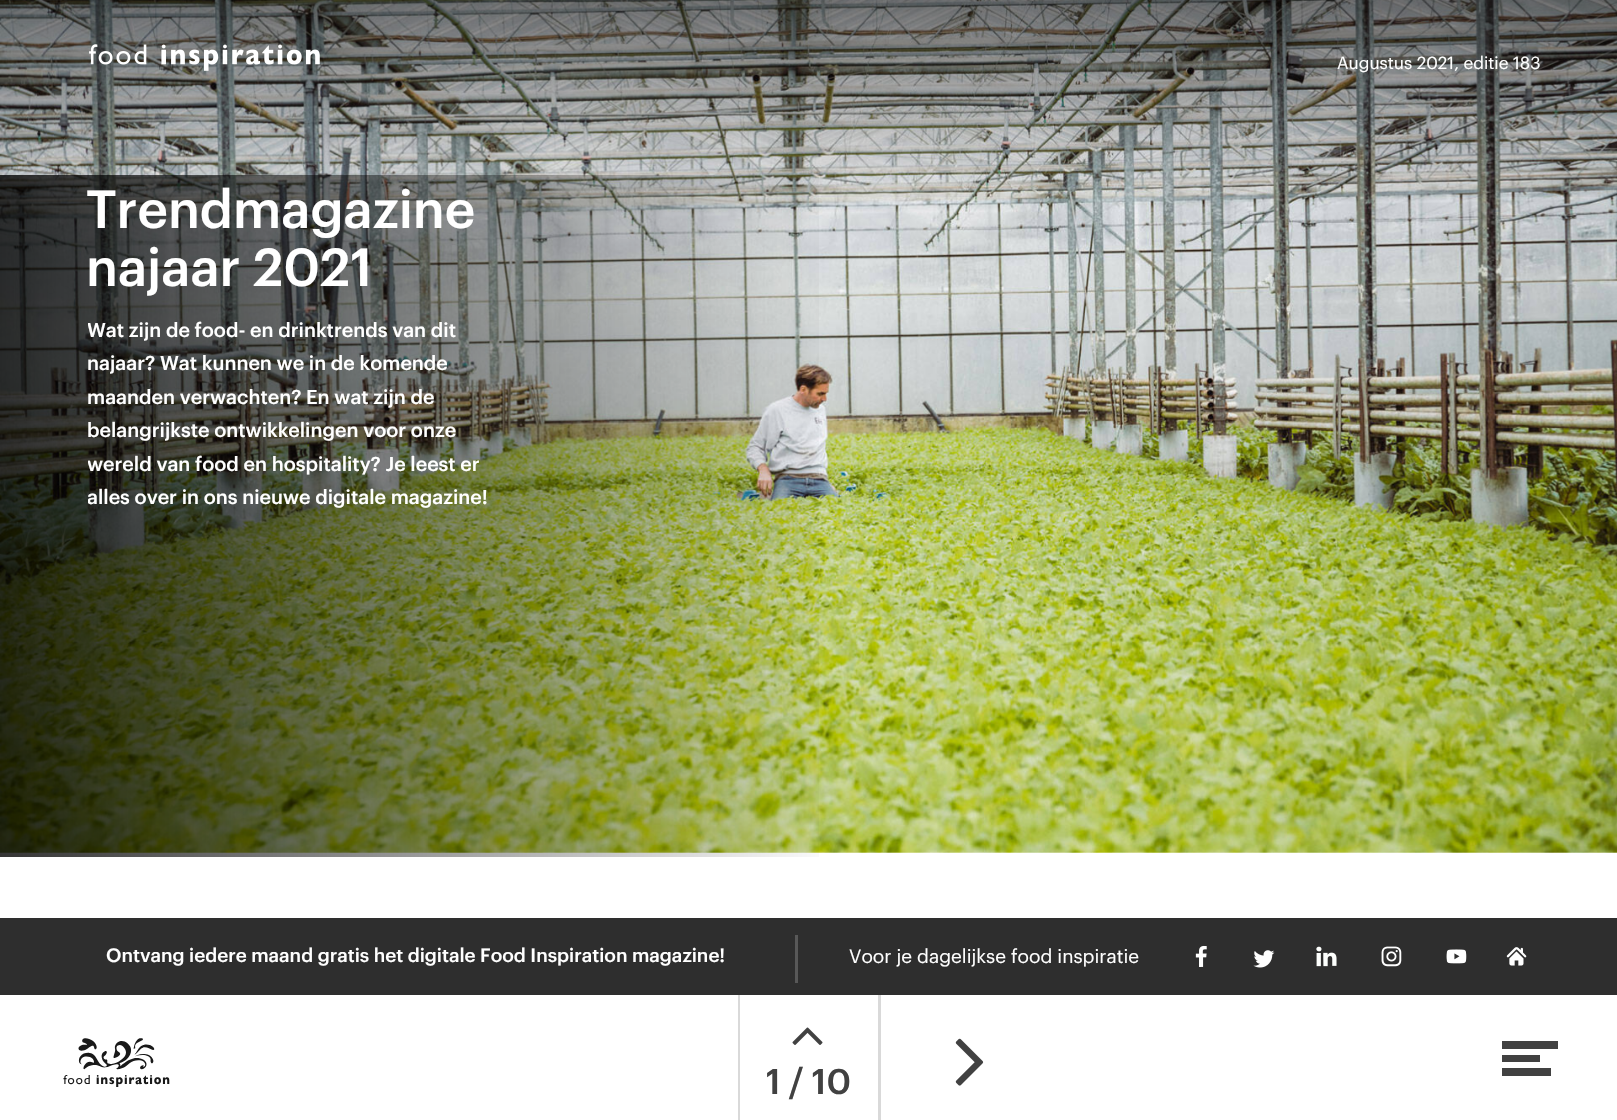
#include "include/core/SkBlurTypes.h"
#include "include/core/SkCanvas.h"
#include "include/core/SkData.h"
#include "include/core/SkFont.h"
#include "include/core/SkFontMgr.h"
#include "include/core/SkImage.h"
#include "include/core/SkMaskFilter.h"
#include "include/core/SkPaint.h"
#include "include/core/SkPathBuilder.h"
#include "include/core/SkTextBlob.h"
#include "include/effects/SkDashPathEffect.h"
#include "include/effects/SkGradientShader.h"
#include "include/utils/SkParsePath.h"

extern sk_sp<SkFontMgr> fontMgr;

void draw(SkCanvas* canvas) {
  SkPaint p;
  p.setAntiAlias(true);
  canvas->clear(SK_ColorWHITE);
  canvas->drawImageRect(SkImages::DeferredFromEncodedData(SkData::MakeFromFileName("images/1.png")), SkRect::MakeLTRB(0, 0, 1617, 853), SkSamplingOptions());
  canvas->drawImageRect(SkImages::DeferredFromEncodedData(SkData::MakeFromFileName("images/2.png")), SkRect::MakeLTRB(0, 0, 1617, 197), SkSamplingOptions());
  canvas->drawImageRect(SkImages::DeferredFromEncodedData(SkData::MakeFromFileName("images/3.png")), SkRect::MakeLTRB(89, 44, 320, 71), SkSamplingOptions());
  {
    const SkColor colors[] = {SkColorSetARGB(0, 0, 0, 0), SkColorSetARGB(207, 0, 0, 0)};
    const float stops[] = {0, 1};
    const SkPoint ends[] = {{842, 517}, {-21, 517}};
    p.setShader(SkGradientShader::MakeLinear(ends, colors, stops, 2, SkTileMode::kClamp));
    p.setAlpha(255);
  }
  canvas->drawRect(SkRect::MakeLTRB(0, 175, 819, 857), p);
  p.setShader(nullptr);
  p.setColor(SkColorSetRGB(46, 46, 46));
  canvas->drawRect(SkRect::MakeLTRB(0, 918, 1617, 995), p);
  p.setColor(SkColorSetRGB(88, 88, 88));
  canvas->drawRect(SkRect::MakeLTRB(795, 935, 798, 983), p);
  canvas->drawImageRect(SkImages::DeferredFromEncodedData(SkData::MakeFromFileName("images/4.png")), SkRect::MakeLTRB(1195, 945, 1207, 967), SkSamplingOptions());
  canvas->drawImageRect(SkImages::DeferredFromEncodedData(SkData::MakeFromFileName("images/5.png")), SkRect::MakeLTRB(1253, 950, 1275, 968), SkSamplingOptions());
  canvas->drawImageRect(SkImages::DeferredFromEncodedData(SkData::MakeFromFileName("images/6.png")), SkRect::MakeLTRB(1316, 946, 1337, 967), SkSamplingOptions());
  canvas->drawImageRect(SkImages::DeferredFromEncodedData(SkData::MakeFromFileName("images/7.png")), SkRect::MakeLTRB(1381, 946, 1402, 967), SkSamplingOptions());
  canvas->drawImageRect(SkImages::DeferredFromEncodedData(SkData::MakeFromFileName("images/8.png")), SkRect::MakeLTRB(1446, 949, 1467, 964), SkSamplingOptions());
  canvas->drawImageRect(SkImages::DeferredFromEncodedData(SkData::MakeFromFileName("images/9.png")), SkRect::MakeLTRB(1506, 947, 1527, 966), SkSamplingOptions());
  canvas->drawImageRect(SkImages::DeferredFromEncodedData(SkData::MakeFromFileName("images/10.png")), SkRect::MakeLTRB(63, 1038, 170, 1087), SkSamplingOptions());
  p.setColor(SkColorSetRGB(65, 65, 65));
  canvas->drawPath(SkPathBuilder().moveTo(1502, 1041).lineTo(1558, 1041).lineTo(1558, 1049).lineTo(1502, 1049).close().moveTo(1502, 1055).lineTo(1540, 1055).lineTo(1540, 1062).lineTo(1502, 1062).close().moveTo(1502, 1068).lineTo(1551, 1068).lineTo(1551, 1076).lineTo(1502, 1076).close().detach(), p);
  p.setColor(SkColorSetRGB(217, 217, 217));
  canvas->drawRect(SkRect::MakeLTRB(738, 995, 740, 1120), p);
  canvas->drawImageRect(SkImages::DeferredFromEncodedData(SkData::MakeFromFileName("images/11.png")), SkRect::MakeLTRB(792, 1027, 823, 1045), SkSamplingOptions());
  canvas->drawRect(SkRect::MakeLTRB(878, 995, 881, 1120), p);
  canvas->drawImageRect(SkImages::DeferredFromEncodedData(SkData::MakeFromFileName("images/12.png")), SkRect::MakeLTRB(955, 1038, 984, 1086), SkSamplingOptions());
  SkFont font1(fontMgr->matchFamilyStyle("Graphik", SkFontStyle::Normal()), 17.1f);
  font1.setSubpixel(true);
  p.setColor(SK_ColorWHITE);
  canvas->drawString("Augustus 2021, editie 183", 1337, 69, font1, p);
  SkFont font2(fontMgr->matchFamilyStyle("Graphik", SkFontStyle(500, SkFontStyle::kNormal_Width, SkFontStyle::kUpright_Slant)), 52.5f);
  font2.setSubpixel(true);
  canvas->drawString("Trendmagazine", 86, 228, font2, p);
  canvas->drawString("najaar 2021", 86, 286, font2, p);
  canvas->save();
  canvas->clipRect(SkRect::MakeLTRB(88, 315, 520, 578));
  SkFont font3(fontMgr->matchFamilyStyle("Graphik", SkFontStyle(500, SkFontStyle::kNormal_Width, SkFontStyle::kUpright_Slant)), 19.75f);
  font3.setSubpixel(true);
  canvas->drawString("Wat zijn de food- en drinktrends van dit", 87, 337, font3, p);
  canvas->restore();
  canvas->drawString("najaar? Wat kunnen we in de komende", 87, 370, font3, p);
  canvas->drawString("maanden verwachten? En wat zijn de", 87, 404, font3, p);
  canvas->drawString("belangrijkste ontwikkelingen voor onze", 87, 437, font3, p);
  canvas->save();
  canvas->clipRect(SkRect::MakeLTRB(88, 315, 520, 578));
  canvas->drawString("wereld van food en hospitality? Je leest er", 87, 471, font3, p);
  canvas->drawString("alles over in ons nieuwe digitale magazine!", 87, 504, font3, p);
  canvas->restore();
  SkFont font4(fontMgr->matchFamilyStyle("Graphik", SkFontStyle(500, SkFontStyle::kNormal_Width, SkFontStyle::kUpright_Slant)), 18.95f);
  font4.setSubpixel(true);
  canvas->drawString("Ontvang iedere maand gratis het digitale Food Inspiration magazine!", 106, 962, font4, p);
  SkFont font5(fontMgr->matchFamilyStyle("Graphik", SkFontStyle::Normal()), 18.95f);
  font5.setSubpixel(true);
  canvas->drawString("Voor je dagelijkse food inspiratie", 849, 963, font5, p);
  SkFont font6(fontMgr->matchFamilyStyle("Graphik", SkFontStyle(500, SkFontStyle::kNormal_Width, SkFontStyle::kUpright_Slant)), 35);
  font6.setSubpixel(true);
  p.setColor(SkColorSetRGB(65, 65, 65));
  canvas->drawString("1 / 10", 766, 1094, font6, p);
}
